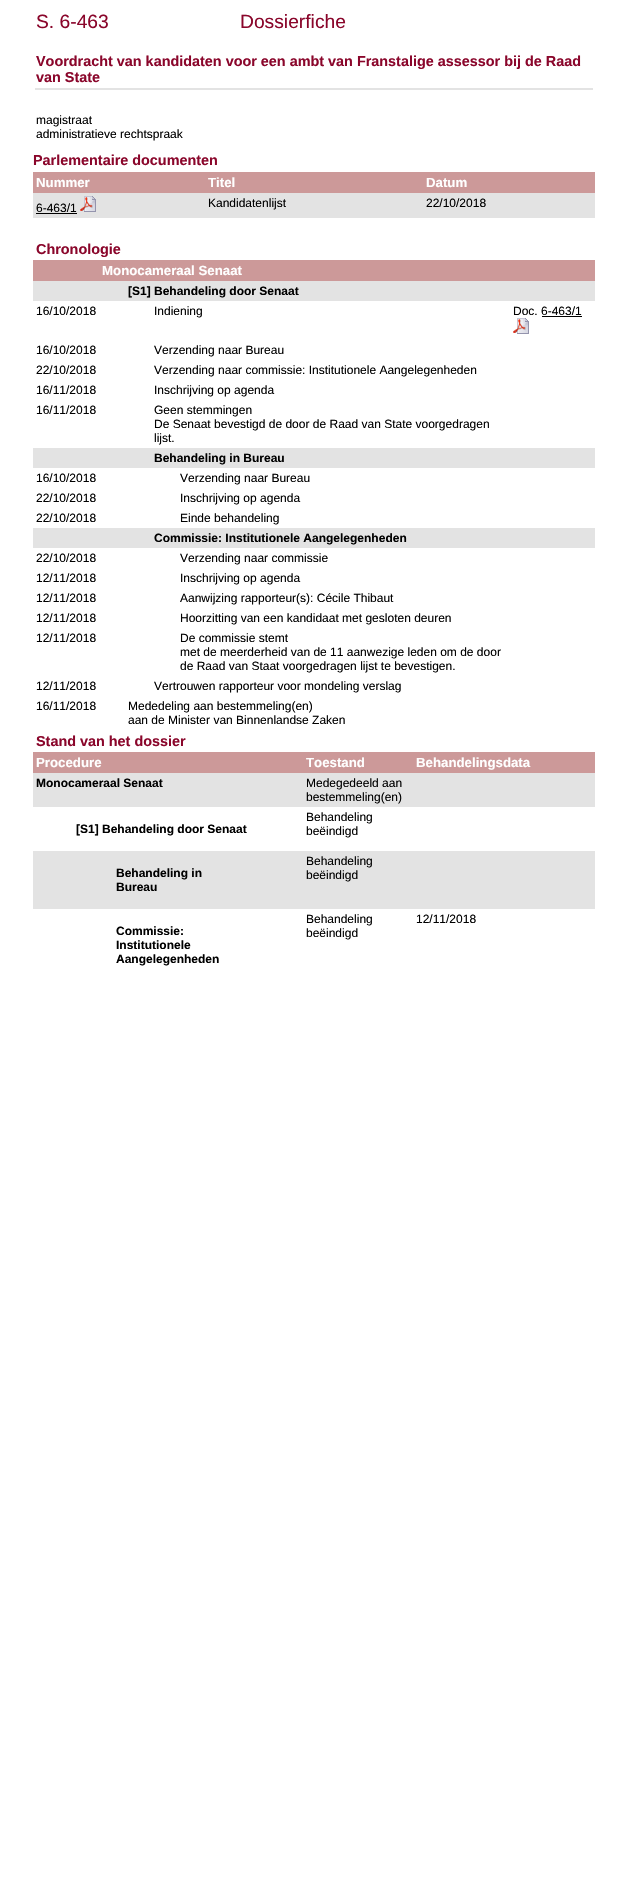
#include "include/core/SkBlurTypes.h"
#include "include/core/SkCanvas.h"
#include "include/core/SkData.h"
#include "include/core/SkFont.h"
#include "include/core/SkFontMgr.h"
#include "include/core/SkImage.h"
#include "include/core/SkMaskFilter.h"
#include "include/core/SkPaint.h"
#include "include/core/SkPathBuilder.h"
#include "include/core/SkTextBlob.h"
#include "include/effects/SkDashPathEffect.h"
#include "include/effects/SkGradientShader.h"
#include "include/utils/SkParsePath.h"

extern sk_sp<SkFontMgr> fontMgr;

void draw(SkCanvas* canvas) {
  SkPaint p;
  p.setAntiAlias(true);
  canvas->clear(SK_ColorWHITE);
  p.setColor(SkColorSetRGB(227, 227, 227));
  canvas->drawRect(SkRect::MakeLTRB(35, 88, 593, 90), p);
  p.setColor(SkColorSetRGB(204, 153, 153));
  canvas->drawRect(SkRect::MakeLTRB(33, 172, 595, 193), p);
  p.setColor(SkColorSetRGB(227, 227, 227));
  canvas->drawRect(SkRect::MakeLTRB(33, 193, 595, 218), p);
  p.setColor(SK_ColorBLACK);
  canvas->drawRect(SkRect::MakeLTRB(36, 213, 77, 214), p);
  canvas->drawImageRect(SkImages::DeferredFromEncodedData(SkData::MakeFromFileName("images/1.png")), SkRect::MakeLTRB(80, 196, 96, 212), SkSamplingOptions());
  p.setColor(SkColorSetRGB(204, 153, 153));
  canvas->drawRect(SkRect::MakeLTRB(33, 260, 595, 281), p);
  p.setColor(SkColorSetRGB(227, 227, 227));
  canvas->drawRect(SkRect::MakeLTRB(33, 281, 595, 301), p);
  p.setColor(SK_ColorBLACK);
  canvas->drawRect(SkRect::MakeLTRB(542, 316, 582, 317), p);
  canvas->drawImageRect(SkImages::DeferredFromEncodedData(SkData::MakeFromFileName("images/2.png")), SkRect::MakeLTRB(513, 318, 529, 334), SkSamplingOptions());
  p.setColor(SkColorSetRGB(227, 227, 227));
  canvas->drawRect(SkRect::MakeLTRB(33, 448, 595, 468), p);
  canvas->drawRect(SkRect::MakeLTRB(33, 528, 595, 548), p);
  p.setColor(SkColorSetRGB(204, 153, 153));
  canvas->drawRect(SkRect::MakeLTRB(33, 752, 595, 773), p);
  p.setColor(SkColorSetRGB(227, 227, 227));
  canvas->drawRect(SkRect::MakeLTRB(33, 773, 595, 807), p);
  canvas->drawRect(SkRect::MakeLTRB(33, 851, 595, 909), p);
  SkFont font1(fontMgr->matchFamilyStyle("Liberation Sans", SkFontStyle::Normal()), 19.25f);
  font1.setSubpixel(true);
  p.setColor(SkColorSetRGB(138, 6, 43));
  canvas->drawString("S. 6-463", 36, 28, font1, p);
  canvas->drawString("Dossierfiche", 240, 28, font1, p);
  SkFont font2(fontMgr->matchFamilyStyle("Liberation Sans", SkFontStyle::Bold()), 14.4f);
  font2.setSubpixel(true);
  canvas->drawString("Voordracht van kandidaten voor een ambt van Franstalige assessor bij de Raad", 36, 66, font2, p);
  canvas->drawString("van State", 36, 82, font2, p);
  SkFont font3(fontMgr->matchFamilyStyle("Liberation Sans", SkFontStyle::Normal()), 12);
  font3.setSubpixel(true);
  p.setColor(SK_ColorBLACK);
  canvas->drawString("magistraat", 36, 124, font3, p);
  canvas->drawString("administratieve rechtspraak", 36, 138, font3, p);
  p.setColor(SkColorSetRGB(138, 6, 43));
  canvas->drawString("Parlementaire documenten", 33, 165, font2, p);
  SkFont font4(fontMgr->matchFamilyStyle("Liberation Sans", SkFontStyle::Bold()), 13.25f);
  font4.setSubpixel(true);
  p.setColor(SK_ColorWHITE);
  canvas->drawString("Nummer", 36, 187, font4, p);
  canvas->drawString("Titel", 208, 187, font4, p);
  canvas->drawString("Datum", 426, 187, font4, p);
  p.setColor(SK_ColorBLACK);
  canvas->drawString("6-463/1", 36, 212, font3, p);
  canvas->drawString("Kandidatenlijst", 208, 207, font3, p);
  canvas->drawString("22/10/2018", 426, 207, font3, p);
  p.setColor(SkColorSetRGB(138, 6, 43));
  canvas->drawString("Chronologie", 36, 254, font2, p);
  p.setColor(SK_ColorWHITE);
  canvas->drawString("Monocameraal Senaat", 102, 275, font4, p);
  SkFont font5(fontMgr->matchFamilyStyle("Liberation Sans", SkFontStyle::Bold()), 12);
  font5.setSubpixel(true);
  p.setColor(SK_ColorBLACK);
  canvas->drawString("[S1] Behandeling door Senaat", 128, 295, font5, p);
  canvas->drawString("16/10/2018", 36, 315, font3, p);
  canvas->drawString("Indiening", 154, 315, font3, p);
  canvas->drawString("Doc. 6-463/1", 513, 315, font3, p);
  canvas->drawString("16/10/2018", 36, 354, font3, p);
  canvas->drawString("Verzending naar Bureau", 154, 354, font3, p);
  canvas->drawString("22/10/2018", 36, 374, font3, p);
  canvas->drawString("Verzending naar commissie: Institutionele Aangelegenheden", 154, 374, font3, p);
  canvas->drawString("16/11/2018", 36, 394, font3, p);
  canvas->drawString("Inschrijving op agenda", 154, 394, font3, p);
  canvas->drawString("16/11/2018", 36, 414, font3, p);
  canvas->drawString("Geen stemmingen", 154, 414, font3, p);
  canvas->drawString("De Senaat bevestigd de door de Raad van State voorgedragen", 154, 428, font3, p);
  canvas->drawString("lijst.", 154, 442, font3, p);
  canvas->drawString("Behandeling in Bureau", 154, 462, font5, p);
  canvas->drawString("16/10/2018", 36, 482, font3, p);
  canvas->drawString("Verzending naar Bureau", 180, 482, font3, p);
  canvas->drawString("22/10/2018", 36, 502, font3, p);
  canvas->drawString("Inschrijving op agenda", 180, 502, font3, p);
  canvas->drawString("22/10/2018", 36, 522, font3, p);
  canvas->drawString("Einde behandeling", 180, 522, font3, p);
  canvas->drawString("Commissie: Institutionele Aangelegenheden", 154, 542, font5, p);
  canvas->drawString("22/10/2018", 36, 562, font3, p);
  canvas->drawString("Verzending naar commissie", 180, 562, font3, p);
  canvas->drawString("12/11/2018", 36, 582, font3, p);
  canvas->drawString("Inschrijving op agenda", 180, 582, font3, p);
  canvas->drawString("12/11/2018", 36, 602, font3, p);
  canvas->drawString("Aanwijzing rapporteur(s): Cécile Thibaut", 180, 602, font3, p);
  canvas->drawString("12/11/2018", 36, 622, font3, p);
  canvas->drawString("Hoorzitting van een kandidaat met gesloten deuren", 180, 622, font3, p);
  canvas->drawString("12/11/2018", 36, 642, font3, p);
  canvas->drawString("De commissie stemt", 180, 642, font3, p);
  canvas->drawString("met de meerderheid van de 11 aanwezige leden om de door", 180, 656, font3, p);
  canvas->drawString("de Raad van Staat voorgedragen lijst te bevestigen.", 180, 670, font3, p);
  canvas->drawString("12/11/2018", 36, 690, font3, p);
  canvas->drawString("Vertrouwen rapporteur voor mondeling verslag", 154, 690, font3, p);
  canvas->drawString("16/11/2018", 36, 710, font3, p);
  canvas->drawString("Mededeling aan bestemmeling(en)", 128, 710, font3, p);
  canvas->drawString("aan de Minister van Binnenlandse Zaken", 128, 724, font3, p);
  p.setColor(SkColorSetRGB(138, 6, 43));
  canvas->drawString("Stand van het dossier", 36, 746, font2, p);
  p.setColor(SK_ColorWHITE);
  canvas->drawString("Procedure", 36, 767, font4, p);
  canvas->drawString("Toestand", 306, 767, font4, p);
  canvas->drawString("Behandelingsdata", 416, 767, font4, p);
  p.setColor(SK_ColorBLACK);
  canvas->drawString("Monocameraal Senaat", 36, 787, font5, p);
  canvas->drawString("Medegedeeld aan", 306, 787, font3, p);
  canvas->drawString("bestemmeling(en)", 306, 801, font3, p);
  canvas->drawString("[S1] Behandeling door Senaat", 76, 833, font5, p);
  canvas->drawString("Behandeling", 306, 821, font3, p);
  canvas->drawString("beëindigd", 306, 835, font3, p);
  canvas->drawString("Behandeling in", 116, 877, font5, p);
  canvas->drawString("Bureau", 116, 891, font5, p);
  canvas->drawString("Behandeling", 306, 865, font3, p);
  canvas->drawString("beëindigd", 306, 879, font3, p);
  canvas->drawString("Behandeling", 306, 923, font3, p);
  canvas->drawString("beëindigd", 306, 937, font3, p);
  canvas->drawString("12/11/2018", 416, 923, font3, p);
  canvas->drawString("Commissie:", 116, 935, font5, p);
  canvas->drawString("Institutionele", 116, 949, font5, p);
  canvas->drawString("Aangelegenheden", 116, 963, font5, p);
}
